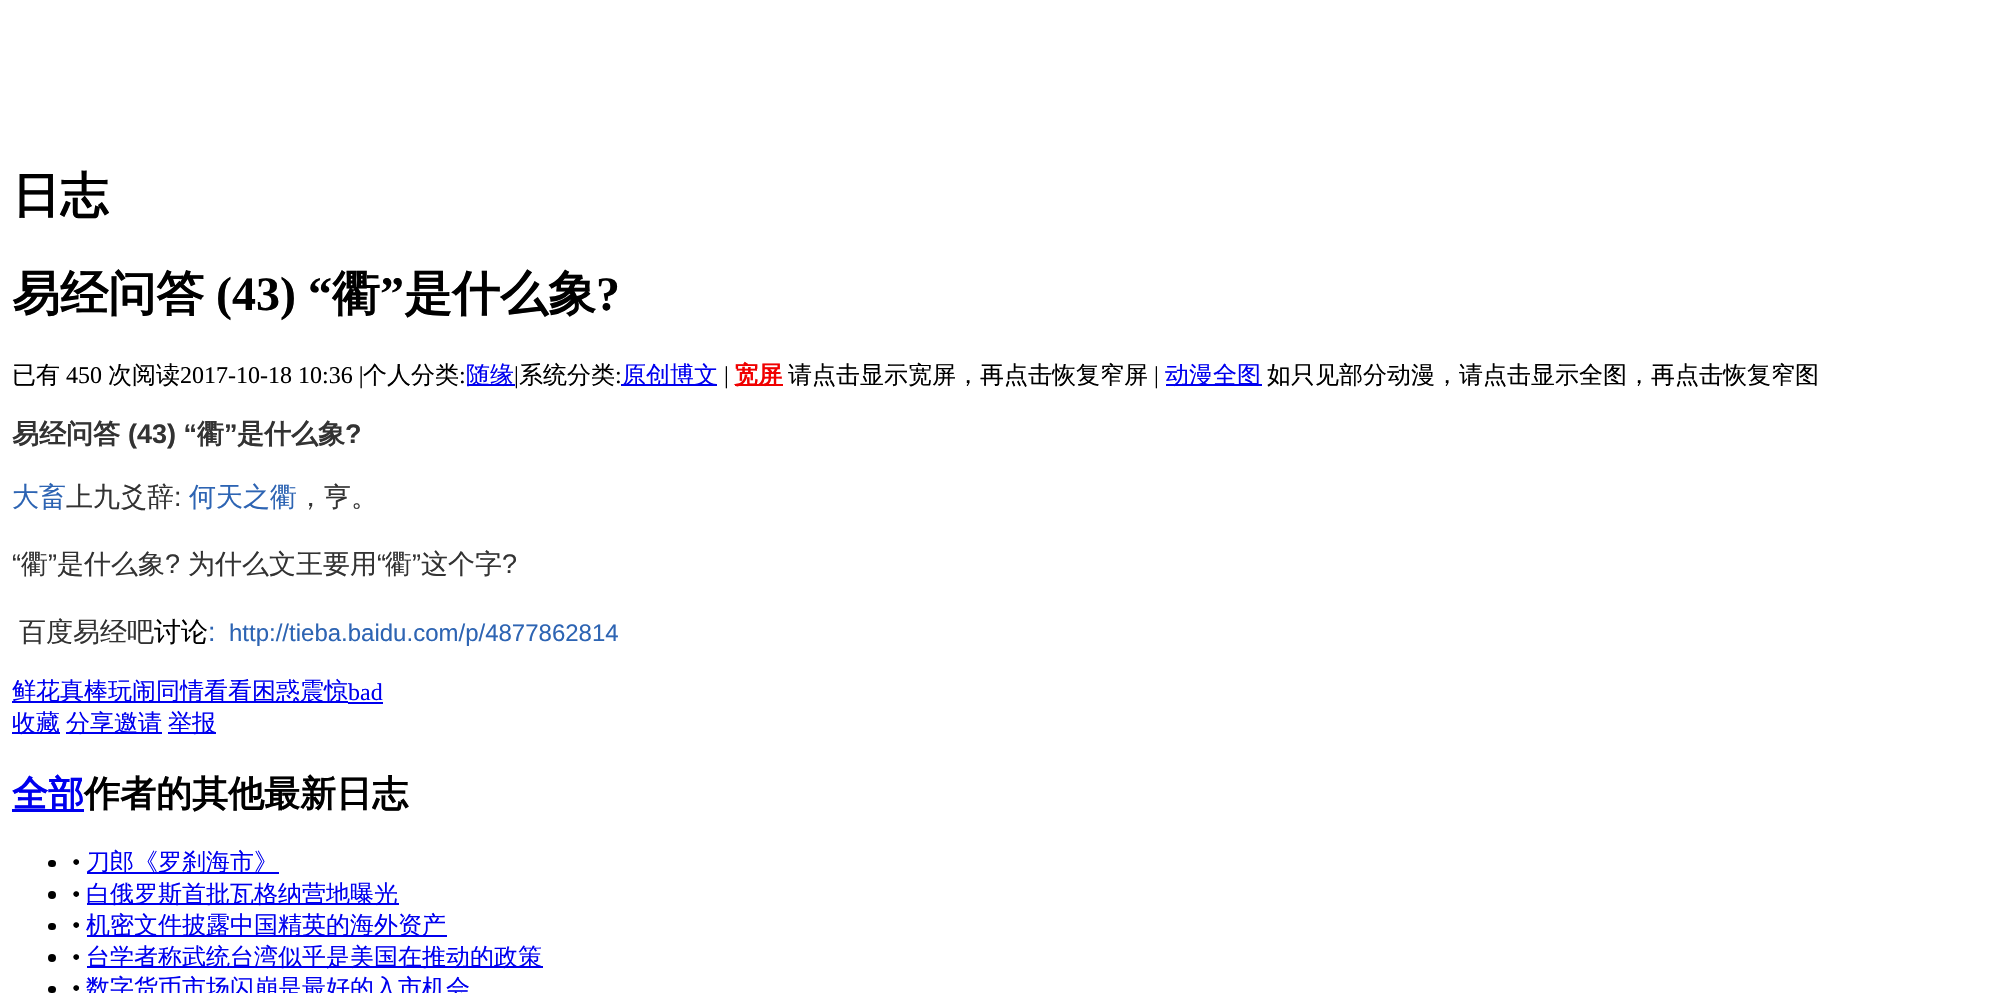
#include "include/core/SkBlurTypes.h"
#include "include/core/SkCanvas.h"
#include "include/core/SkData.h"
#include "include/core/SkFont.h"
#include "include/core/SkFontMgr.h"
#include "include/core/SkImage.h"
#include "include/core/SkMaskFilter.h"
#include "include/core/SkPaint.h"
#include "include/core/SkPathBuilder.h"
#include "include/core/SkTextBlob.h"
#include "include/effects/SkDashPathEffect.h"
#include "include/effects/SkGradientShader.h"
#include "include/utils/SkParsePath.h"

extern sk_sp<SkFontMgr> fontMgr;

void draw(SkCanvas* canvas) {
  SkPaint p;
  p.setAntiAlias(true);
  canvas->clear(SK_ColorWHITE);
  p.setColor(SkColorSetRGB(0, 0, 238));
  canvas->drawRect(SkRect::MakeLTRB(467, 384, 515, 386), p);
  canvas->drawRect(SkRect::MakeLTRB(621, 384, 717, 386), p);
  p.setColor(SkColorSetRGB(240, 0, 0));
  canvas->drawRect(SkRect::MakeLTRB(735, 384, 783, 386), p);
  p.setColor(SkColorSetRGB(0, 0, 240));
  canvas->drawRect(SkRect::MakeLTRB(1166, 384, 1262, 386), p);
  p.setColor(SkColorSetRGB(0, 0, 238));
  canvas->drawRect(SkRect::MakeLTRB(12, 701, 348, 703), p);
  canvas->drawRect(SkRect::MakeLTRB(348, 702, 383, 704), p);
  canvas->drawRect(SkRect::MakeLTRB(12, 732, 60, 734), p);
  canvas->drawRect(SkRect::MakeLTRB(66, 732, 162, 734), p);
  canvas->drawRect(SkRect::MakeLTRB(168, 732, 216, 734), p);
  canvas->drawRect(SkRect::MakeLTRB(12, 809, 84, 812), p);
  p.setColor(SK_ColorBLACK);
  canvas->drawRoundRect(SkRect::MakeLTRB(48, 860, 56, 867), 3.5f, 3.5f, p);
  p.setColor(SkColorSetRGB(0, 0, 238));
  canvas->drawRect(SkRect::MakeLTRB(87, 872, 279, 874), p);
  p.setColor(SK_ColorBLACK);
  canvas->drawCircle(52, 895, 4, p);
  p.setColor(SkColorSetRGB(0, 0, 238));
  canvas->drawRect(SkRect::MakeLTRB(87, 903, 399, 905), p);
  p.setColor(SK_ColorBLACK);
  canvas->drawRoundRect(SkRect::MakeLTRB(48, 923, 56, 930), 3.5f, 3.5f, p);
  p.setColor(SkColorSetRGB(0, 0, 238));
  canvas->drawRect(SkRect::MakeLTRB(87, 935, 447, 937), p);
  p.setColor(SK_ColorBLACK);
  canvas->drawCircle(52, 958, 4, p);
  p.setColor(SkColorSetRGB(0, 0, 238));
  canvas->drawRect(SkRect::MakeLTRB(87, 966, 543, 968), p);
  p.setColor(SK_ColorBLACK);
  canvas->drawRoundRect(SkRect::MakeLTRB(48, 986, 56, 993), 3.5f, 3.5f, p);
  SkFont font1(fontMgr->matchFamilyStyle("WenQuanYi Zen Hei", SkFontStyle::Bold()), 48);
  font1.setSubpixel(true);
  canvas->drawString("日志", 12, 212, font1, p);
  canvas->drawString("易经问答", 12, 310, font1, p);
  SkFont font2(fontMgr->matchFamilyStyle("Liberation Serif", SkFontStyle::Bold()), 48);
  font2.setSubpixel(true);
  canvas->drawString("(43) “", 216, 310, font2, p);
  canvas->drawString("衢", 332, 310, font1, p);
  canvas->drawString("”", 380, 310, font2, p);
  canvas->drawString("是什么象", 404, 310, font1, p);
  canvas->drawString("?", 596, 310, font2, p);
  SkFont font3(fontMgr->matchFamilyStyle("WenQuanYi Zen Hei", SkFontStyle(500, SkFontStyle::kNormal_Width, SkFontStyle::kUpright_Slant)), 24);
  font3.setSubpixel(true);
  canvas->drawString("已有", 12, 383, font3, p);
  SkFont font4(fontMgr->matchFamilyStyle("Liberation Serif", SkFontStyle::Normal()), 24);
  font4.setSubpixel(true);
  canvas->drawString("450", 66, 383, font4, p);
  canvas->drawString("次阅读", 108, 383, font3, p);
  canvas->drawString("2017-10-18 10:36 |", 180, 383, font4, p);
  canvas->drawString("个人分类", 363, 383, font3, p);
  canvas->drawString(":", 459, 383, font4, p);
  p.setColor(SkColorSetRGB(0, 0, 238));
  canvas->drawString("随缘", 466, 383, font3, p);
  p.setColor(SK_ColorBLACK);
  canvas->drawString("|", 514, 383, font4, p);
  canvas->drawString("系统分类", 519, 383, font3, p);
  canvas->drawString(":", 615, 383, font4, p);
  p.setColor(SkColorSetRGB(0, 0, 238));
  canvas->drawString("原创博文", 622, 383, font3, p);
  p.setColor(SK_ColorBLACK);
  canvas->drawString("|", 724, 383, font4, p);
  SkFont font5(fontMgr->matchFamilyStyle("WenQuanYi Zen Hei", SkFontStyle::Bold()), 24);
  font5.setSubpixel(true);
  p.setColor(SkColorSetRGB(240, 0, 0));
  canvas->drawString("宽屏", 734, 383, font5, p);
  p.setColor(SK_ColorBLACK);
  canvas->drawString("请点击显示宽屏，再点击恢复窄屏", 788, 383, font3, p);
  canvas->drawString("|", 1154, 383, font4, p);
  p.setColor(SkColorSetRGB(0, 0, 238));
  canvas->drawString("动漫全图", 1165, 383, font3, p);
  p.setColor(SK_ColorBLACK);
  canvas->drawString("如只见部分动漫，请点击显示全图，再点击恢复窄图", 1267, 383, font3, p);
  SkFont font6(fontMgr->matchFamilyStyle("WenQuanYi Zen Hei", SkFontStyle::Bold()), 27);
  font6.setSubpixel(true);
  p.setColor(SkColorSetRGB(51, 51, 51));
  canvas->drawString("易经问答", 12, 443, font6, p);
  SkFont font7(fontMgr->matchFamilyStyle("Liberation Sans", SkFontStyle::Bold()), 27);
  font7.setSubpixel(true);
  canvas->drawString("(43) “", 128, 443, font7, p);
  canvas->drawString("衢", 197, 443, font6, p);
  canvas->drawString("”", 224, 443, font7, p);
  canvas->drawString("是什么象", 237, 443, font6, p);
  canvas->drawString("?", 345, 443, font7, p);
  SkFont font8(fontMgr->matchFamilyStyle("WenQuanYi Zen Hei", SkFontStyle(500, SkFontStyle::kNormal_Width, SkFontStyle::kUpright_Slant)), 27);
  font8.setSubpixel(true);
  p.setColor(SkColorSetRGB(45, 100, 179));
  canvas->drawString("大畜", 12, 506, font8, p);
  p.setColor(SkColorSetRGB(51, 51, 51));
  canvas->drawString("上九爻辞", 66, 506, font8, p);
  SkFont font9(fontMgr->matchFamilyStyle("Liberation Sans", SkFontStyle::Normal()), 27);
  font9.setSubpixel(true);
  canvas->drawString(":", 174, 506, font9, p);
  p.setColor(SkColorSetRGB(45, 100, 179));
  canvas->drawString("何天之衢", 189, 506, font8, p);
  p.setColor(SkColorSetRGB(51, 51, 51));
  canvas->drawString("，亨。", 297, 506, font8, p);
  canvas->drawString("“", 12, 573, font9, p);
  canvas->drawString("衢", 21, 573, font8, p);
  canvas->drawString("”", 48, 573, font9, p);
  canvas->drawString("是什么象", 57, 573, font8, p);
  canvas->drawString("?", 165, 573, font9, p);
  canvas->drawString("为什么文王要用", 188, 573, font8, p);
  canvas->drawString("“", 377, 573, font9, p);
  canvas->drawString("衢", 385, 573, font8, p);
  canvas->drawString("”", 412, 573, font9, p);
  canvas->drawString("这个字", 421, 573, font8, p);
  canvas->drawString("?", 502, 573, font9, p);
  canvas->drawString("百度易经吧", 19, 641, font8, p);
  p.setColor(SK_ColorBLACK);
  canvas->drawString("讨论", 154, 641, font8, p);
  p.setColor(SkColorSetRGB(45, 100, 179));
  canvas->drawString(":", 208, 641, font9, p);
  SkFont font10(fontMgr->matchFamilyStyle("Liberation Sans", SkFontStyle::Normal()), 24);
  font10.setSubpixel(true);
  canvas->drawString("http://tieba.baidu.com/p/4877862814", 229, 641, font10, p);
  p.setColor(SkColorSetRGB(0, 0, 238));
  canvas->drawString("鲜花真棒玩闹同情看看困惑震惊", 12, 699, font3, p);
  canvas->drawString("bad", 348, 700, font4, p);
  canvas->drawString("收藏", 12, 731, font3, p);
  canvas->drawString("分享邀请", 66, 731, font3, p);
  canvas->drawString("举报", 168, 731, font3, p);
  SkFont font11(fontMgr->matchFamilyStyle("WenQuanYi Zen Hei", SkFontStyle::Bold()), 36);
  font11.setSubpixel(true);
  canvas->drawString("全部", 12, 806, font11, p);
  p.setColor(SK_ColorBLACK);
  canvas->drawString("作者的其他最新日志", 84, 806, font11, p);
  canvas->drawString("•", 72, 870, font4, p);
  p.setColor(SkColorSetRGB(0, 0, 238));
  canvas->drawString("刀郎《罗刹海市》", 86, 870, font3, p);
  p.setColor(SK_ColorBLACK);
  canvas->drawString("•", 72, 902, font4, p);
  p.setColor(SkColorSetRGB(0, 0, 238));
  canvas->drawString("白俄罗斯首批瓦格纳营地曝光", 86, 902, font3, p);
  p.setColor(SK_ColorBLACK);
  canvas->drawString("•", 72, 933, font4, p);
  p.setColor(SkColorSetRGB(0, 0, 238));
  canvas->drawString("机密文件披露中国精英的海外资产", 86, 933, font3, p);
  p.setColor(SK_ColorBLACK);
  canvas->drawString("•", 72, 965, font4, p);
  p.setColor(SkColorSetRGB(0, 0, 238));
  canvas->drawString("台学者称武统台湾似乎是美国在推动的政策", 86, 965, font3, p);
  p.setColor(SK_ColorBLACK);
  canvas->drawString("•", 72, 996, font4, p);
  p.setColor(SkColorSetRGB(0, 0, 238));
  canvas->drawString("数字货币市场闪崩是最好的入市机会", 86, 996, font3, p);
}
